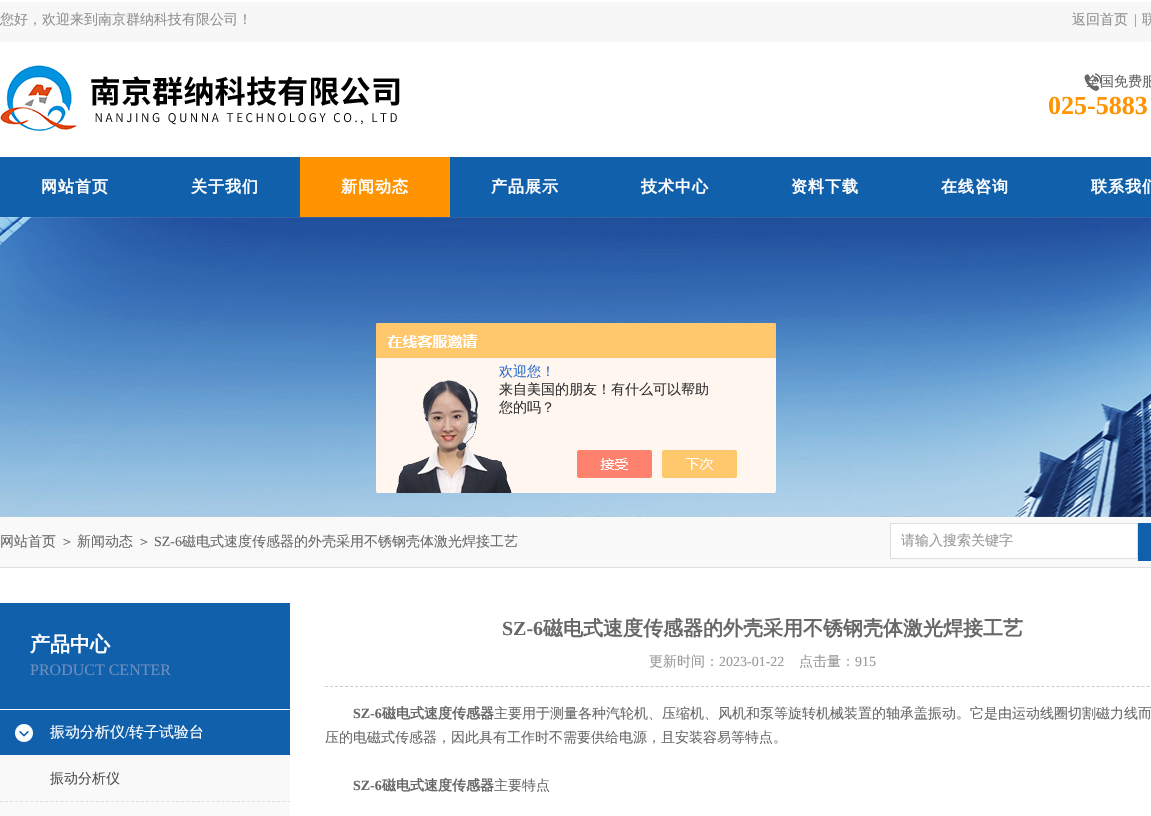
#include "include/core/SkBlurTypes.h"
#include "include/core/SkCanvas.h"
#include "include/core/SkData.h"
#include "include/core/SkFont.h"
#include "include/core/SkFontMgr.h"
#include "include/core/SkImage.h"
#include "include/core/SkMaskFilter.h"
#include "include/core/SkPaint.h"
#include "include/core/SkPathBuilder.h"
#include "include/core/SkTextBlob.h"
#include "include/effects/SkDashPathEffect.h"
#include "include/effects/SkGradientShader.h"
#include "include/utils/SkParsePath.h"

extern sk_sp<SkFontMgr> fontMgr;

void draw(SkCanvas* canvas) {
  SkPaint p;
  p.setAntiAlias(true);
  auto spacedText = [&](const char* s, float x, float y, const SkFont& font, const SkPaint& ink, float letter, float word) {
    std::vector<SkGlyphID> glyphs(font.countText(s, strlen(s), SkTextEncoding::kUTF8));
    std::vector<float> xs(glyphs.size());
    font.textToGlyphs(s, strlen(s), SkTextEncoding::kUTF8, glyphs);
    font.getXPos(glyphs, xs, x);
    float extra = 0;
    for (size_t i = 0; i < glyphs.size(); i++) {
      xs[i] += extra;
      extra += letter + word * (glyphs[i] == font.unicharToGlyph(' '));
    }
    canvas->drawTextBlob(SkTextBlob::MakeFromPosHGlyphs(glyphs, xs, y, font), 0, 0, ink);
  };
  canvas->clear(SK_ColorWHITE);
  p.setColor(SkColorSetRGB(247, 247, 247));
  canvas->drawRect(SkRect::MakeLTRB(0, 2, 1151, 42), p);
  canvas->drawImageRect(SkImages::DeferredFromEncodedData(SkData::MakeFromFileName("images/1.png")), SkRect::MakeLTRB(0, 65, 400, 131), SkSamplingOptions());
  canvas->drawImageRect(SkImages::DeferredFromEncodedData(SkData::MakeFromFileName("images/2.png")), SkRect::MakeLTRB(1084, 73, 1102, 91), SkSamplingOptions());
  p.setColor(SkColorSetRGB(16, 96, 171));
  canvas->drawRect(SkRect::MakeLTRB(0, 157, 1151, 217), p);
  p.setColor(SkColorSetRGB(255, 147, 0));
  canvas->drawRect(SkRect::MakeLTRB(300, 157, 450, 217), p);
  canvas->drawImageRect(SkImages::DeferredFromEncodedData(SkData::MakeFromFileName("images/3.png")), SkRect::MakeLTRB(0, 217, 1151, 517), SkSamplingOptions());
  canvas->drawImageRect(SkImages::DeferredFromEncodedData(SkData::MakeFromFileName("images/4.png")), SkRect::MakeLTRB(376, 323, 776, 493), SkSamplingOptions());
  p.setColor(SkColorSetRGB(249, 249, 249));
  canvas->drawRect(SkRect::MakeLTRB(0, 517, 1151, 567), p);
  p.setColor(SkColorSetRGB(223, 223, 223));
  canvas->drawRect(SkRect::MakeLTRB(0, 567, 1151, 568), p);
  p.setColor(SK_ColorWHITE);
  canvas->drawRect(SkRect::MakeLTRB(890.5f, 523.5f, 1137.5f, 558.5f), p);
  p.setStyle(SkPaint::kStroke_Style);
  p.setStrokeWidth(1);
  p.setColor(SkColorSetRGB(223, 223, 223));
  canvas->drawRect(SkRect::MakeLTRB(890.5f, 523.5f, 1137.5f, 558.5f), p);
  p.setStyle(SkPaint::kFill_Style);
  p.setColor(SkColorSetRGB(16, 96, 171));
  canvas->drawRect(SkRect::MakeLTRB(1138, 523, 1151, 561), p);
  canvas->drawRect(SkRect::MakeLTRB(0, 603, 290, 709), p);
  p.setColor(SkColorSetRGB(249, 249, 249));
  canvas->drawRect(SkRect::MakeLTRB(0, 709, 290, 816), p);
  p.setColor(SkColorSetRGB(16, 96, 171));
  canvas->drawRect(SkRect::MakeLTRB(0, 710, 290, 755), p);
  canvas->drawImageRect(SkImages::DeferredFromEncodedData(SkData::MakeFromFileName("images/5.png")), SkRect::MakeLTRB(15, 724, 33, 742), SkSamplingOptions());
  p.setStyle(SkPaint::kStroke_Style);
  p.setColor(SkColorSetRGB(223, 223, 223));
  p.setPathEffect(SkDashPathEffect::Make({{3, 2.04f}}, 0));
  canvas->drawPath(SkPathBuilder().moveTo(0, 801.5f).lineTo(290, 801.5f).detach(), p);
  p.setPathEffect(nullptr);
  p.setColor(SkColorSetRGB(204, 204, 204));
  p.setPathEffect(SkDashPathEffect::Make({{3, 2.01f}}, 0));
  canvas->drawPath(SkPathBuilder().moveTo(325, 686.5f).lineTo(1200, 686.5f).detach(), p);
  p.setPathEffect(nullptr);
  SkFont font1(fontMgr->matchFamilyStyle("WenQuanYi Zen Hei", SkFontStyle(500, SkFontStyle::kNormal_Width, SkFontStyle::kUpright_Slant)), 14);
  font1.setSubpixel(true);
  p.setStyle(SkPaint::kFill_Style);
  p.setColor(SkColorSetRGB(146, 144, 145));
  canvas->drawString("您好，欢迎来到南京群纳科技有限公司！", 0, 24, font1, p);
  canvas->drawString("返回首页", 1072, 24, font1, p);
  SkFont font2(fontMgr->matchFamilyStyle("Liberation Serif", SkFontStyle::Normal()), 14);
  font2.setSubpixel(true);
  canvas->drawString("|", 1134, 24, font2, p);
  canvas->drawString("联", 1142, 24, font1, p);
  p.setColor(SkColorSetRGB(103, 105, 104));
  canvas->drawString("全国免费服", 1086, 86, font1, p);
  SkFont font3(fontMgr->matchFamilyStyle("Liberation Serif", SkFontStyle::Bold()), 26);
  font3.setSubpixel(true);
  p.setColor(SkColorSetRGB(255, 147, 0));
  canvas->drawString("025-5883", 1048, 114, font3, p);
  SkFont font4(fontMgr->matchFamilyStyle("WenQuanYi Zen Hei", SkFontStyle::Bold()), 16);
  font4.setSubpixel(true);
  p.setColor(SK_ColorWHITE);
  spacedText("网站首页", 41, 192, font4, p, 1, 0);
  spacedText("关于我们", 191, 192, font4, p, 1, 0);
  spacedText("新闻动态", 341, 192, font4, p, 1, 0);
  spacedText("产品展示", 491, 192, font4, p, 1, 0);
  spacedText("技术中心", 641, 192, font4, p, 1, 0);
  spacedText("资料下载", 791, 192, font4, p, 1, 0);
  spacedText("在线咨询", 941, 192, font4, p, 1, 0);
  spacedText("联系我们", 1091, 192, font4, p, 1, 0);
  p.setColor(SkColorSetRGB(46, 110, 198));
  canvas->drawString("欢迎您！", 499, 376, font1, p);
  p.setColor(SkColorSetRGB(51, 51, 51));
  canvas->drawString("来自美国的朋友！有什么可以帮助", 499, 394, font1, p);
  canvas->drawString("您的吗？", 499, 412, font1, p);
  p.setColor(SkColorSetRGB(103, 105, 104));
  canvas->drawString("网站首页", 0, 546, font1, p);
  canvas->drawString("＞", 60, 546, font1, p);
  canvas->drawString("新闻动态", 77, 546, font1, p);
  canvas->drawString("＞", 137, 546, font1, p);
  canvas->drawString("SZ-6", 154, 546, font2, p);
  canvas->drawString("磁电式速度传感器的外壳采用不锈钢壳体激光焊接工艺", 182, 546, font1, p);
  p.setColor(SkColorSetRGB(153, 153, 153));
  canvas->drawString("请输入搜索关键字", 901, 545, font1, p);
  SkFont font5(fontMgr->matchFamilyStyle("WenQuanYi Zen Hei", SkFontStyle::Bold()), 20);
  font5.setSubpixel(true);
  p.setColor(SK_ColorWHITE);
  canvas->drawString("产品中心", 30, 651, font5, p);
  SkFont font6(fontMgr->matchFamilyStyle("Liberation Serif", SkFontStyle::Normal()), 16);
  font6.setSubpixel(true);
  p.setColor(SkColorSetRGB(111, 142, 188));
  canvas->drawString("PRODUCT CENTER", 30, 675, font6, p);
  SkFont font7(fontMgr->matchFamilyStyle("WenQuanYi Zen Hei", SkFontStyle(500, SkFontStyle::kNormal_Width, SkFontStyle::kUpright_Slant)), 15);
  font7.setSubpixel(true);
  p.setColor(SK_ColorWHITE);
  canvas->drawString("振动分析仪", 50, 737, font7, p);
  SkFont font8(fontMgr->matchFamilyStyle("Liberation Serif", SkFontStyle::Normal()), 15);
  font8.setSubpixel(true);
  canvas->drawString("/", 125, 737, font8, p);
  canvas->drawString("转子试验台", 129, 737, font7, p);
  p.setColor(SkColorSetRGB(81, 81, 81));
  canvas->drawString("振动分析仪", 50, 783, font1, p);
  SkFont font9(fontMgr->matchFamilyStyle("Liberation Serif", SkFontStyle::Bold()), 20);
  font9.setSubpixel(true);
  p.setColor(SkColorSetRGB(103, 105, 104));
  canvas->drawString("SZ-6", 502, 635, font9, p);
  canvas->drawString("磁电式速度传感器的外壳采用不锈钢壳体激光焊接工艺", 543, 635, font5, p);
  p.setColor(SkColorSetRGB(153, 153, 153));
  canvas->drawString("更新时间：", 649, 666, font1, p);
  canvas->drawString("2023-01-22", 719, 666, font2, p);
  canvas->drawString("点击量：", 799, 666, font1, p);
  canvas->drawString("915", 855, 666, font2, p);
  SkFont font10(fontMgr->matchFamilyStyle("Liberation Serif", SkFontStyle::Bold()), 14);
  font10.setSubpixel(true);
  p.setColor(SkColorSetRGB(103, 105, 104));
  canvas->drawString("SZ-6", 353, 718, font10, p);
  SkFont font11(fontMgr->matchFamilyStyle("WenQuanYi Zen Hei", SkFontStyle::Bold()), 14);
  font11.setSubpixel(true);
  canvas->drawString("磁电式速度传感器", 382, 718, font11, p);
  canvas->drawString("主要用于测量各种汽轮机、压缩机、风机和泵等旋转机械装置的轴承盖振动。它是由运动线圈切割磁力线而", 494, 718, font1, p);
  canvas->drawString("压的电磁式传感器，因此具有工作时不需要供给电源，且安装容易等特点。", 325, 742, font1, p);
  canvas->drawString("SZ-6", 353, 790, font10, p);
  canvas->drawString("磁电式速度传感器", 382, 790, font11, p);
  canvas->drawString("主要特点", 494, 790, font1, p);
}
